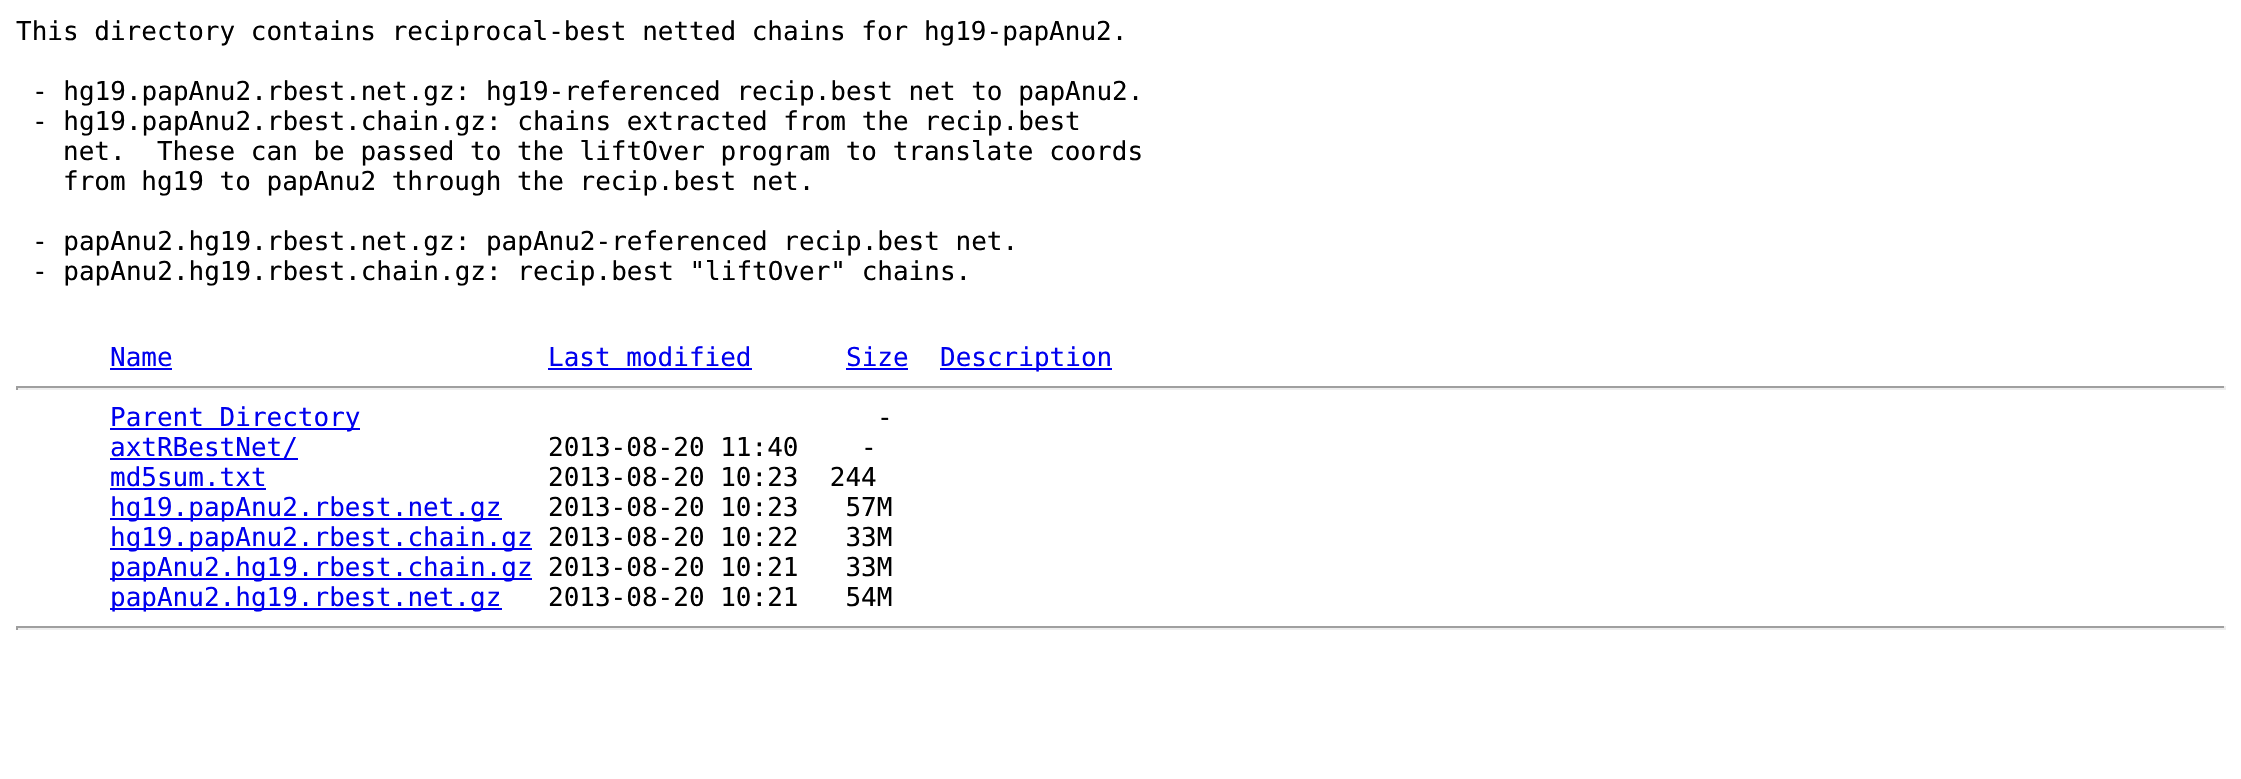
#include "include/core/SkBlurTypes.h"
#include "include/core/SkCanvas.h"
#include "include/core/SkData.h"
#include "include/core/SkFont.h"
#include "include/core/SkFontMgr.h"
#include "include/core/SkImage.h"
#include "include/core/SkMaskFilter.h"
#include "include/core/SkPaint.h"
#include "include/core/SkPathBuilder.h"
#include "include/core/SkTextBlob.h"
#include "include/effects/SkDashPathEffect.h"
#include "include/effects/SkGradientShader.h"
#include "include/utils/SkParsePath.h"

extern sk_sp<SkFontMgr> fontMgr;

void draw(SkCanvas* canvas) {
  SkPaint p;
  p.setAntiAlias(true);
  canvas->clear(SK_ColorWHITE);
  p.setColor(SkColorSetRGB(0, 0, 238));
  canvas->drawRect(SkRect::MakeLTRB(110, 368, 172, 370), p);
  canvas->drawRect(SkRect::MakeLTRB(548, 368, 752, 370), p);
  canvas->drawRect(SkRect::MakeLTRB(846, 368, 908, 370), p);
  canvas->drawRect(SkRect::MakeLTRB(940, 368, 1112, 370), p);
  p.setColor(SkColorSetRGB(159, 159, 159));
  canvas->drawRect(SkRect::MakeLTRB(16, 386, 2226, 388), p);
  p.setColor(SkColorSetRGB(238, 238, 238));
  canvas->drawRect(SkRect::MakeLTRB(2224, 386, 2226, 390), p);
  canvas->drawRect(SkRect::MakeLTRB(16, 388, 2226, 390), p);
  p.setColor(SkColorSetRGB(159, 159, 159));
  canvas->drawRect(SkRect::MakeLTRB(16, 386, 18, 390), p);
  p.setColor(SkColorSetRGB(0, 0, 238));
  canvas->drawRect(SkRect::MakeLTRB(110, 428, 360, 430), p);
  canvas->drawRect(SkRect::MakeLTRB(110, 458, 298, 460), p);
  canvas->drawRect(SkRect::MakeLTRB(110, 488, 266, 490), p);
  canvas->drawRect(SkRect::MakeLTRB(110, 518, 502, 520), p);
  canvas->drawRect(SkRect::MakeLTRB(110, 548, 532, 550), p);
  canvas->drawRect(SkRect::MakeLTRB(110, 578, 532, 580), p);
  canvas->drawRect(SkRect::MakeLTRB(110, 608, 502, 610), p);
  p.setColor(SkColorSetRGB(159, 159, 159));
  canvas->drawRect(SkRect::MakeLTRB(16, 626, 2226, 628), p);
  p.setColor(SkColorSetRGB(238, 238, 238));
  canvas->drawRect(SkRect::MakeLTRB(2224, 626, 2226, 630), p);
  canvas->drawRect(SkRect::MakeLTRB(16, 628, 2226, 630), p);
  p.setColor(SkColorSetRGB(159, 159, 159));
  canvas->drawRect(SkRect::MakeLTRB(16, 626, 18, 630), p);
  SkFont font1(fontMgr->matchFamilyStyle("DejaVu Sans Mono", SkFontStyle::Normal()), 26);
  font1.setSubpixel(true);
  p.setColor(SK_ColorBLACK);
  canvas->drawString("This directory contains reciprocal-best netted chains for hg19-papAnu2.", 16, 40, font1, p);
  canvas->drawString("- hg19.papAnu2.rbest.net.gz: hg19-referenced recip.best net to papAnu2.", 32, 100, font1, p);
  canvas->drawString("- hg19.papAnu2.rbest.chain.gz: chains extracted from the recip.best", 32, 130, font1, p);
  canvas->drawString("net.  These can be passed to the liftOver program to translate coords", 63, 160, font1, p);
  canvas->drawString("from hg19 to papAnu2 through the recip.best net.", 63, 190, font1, p);
  canvas->drawString("- papAnu2.hg19.rbest.net.gz: papAnu2-referenced recip.best net.", 32, 250, font1, p);
  canvas->drawString("- papAnu2.hg19.rbest.chain.gz: recip.best \"liftOver\" chains.", 32, 280, font1, p);
  p.setColor(SkColorSetRGB(0, 0, 238));
  canvas->drawString("Name", 110, 366, font1, p);
  canvas->drawString("Last modified", 548, 366, font1, p);
  canvas->drawString("Size", 846, 366, font1, p);
  canvas->drawString("Description", 940, 366, font1, p);
  canvas->drawString("Parent Directory", 110, 426, font1, p);
  p.setColor(SK_ColorBLACK);
  canvas->drawString("-", 877, 426, font1, p);
  p.setColor(SkColorSetRGB(0, 0, 238));
  canvas->drawString("axtRBestNet/", 110, 456, font1, p);
  p.setColor(SK_ColorBLACK);
  canvas->drawString("2013-08-20 11:40    -", 548, 456, font1, p);
  p.setColor(SkColorSetRGB(0, 0, 238));
  canvas->drawString("md5sum.txt", 110, 486, font1, p);
  p.setColor(SK_ColorBLACK);
  canvas->drawString("2013-08-20 10:23  244", 548, 486, font1, p);
  p.setColor(SkColorSetRGB(0, 0, 238));
  canvas->drawString("hg19.papAnu2.rbest.net.gz", 110, 516, font1, p);
  p.setColor(SK_ColorBLACK);
  canvas->drawString("2013-08-20 10:23   57M", 548, 516, font1, p);
  p.setColor(SkColorSetRGB(0, 0, 238));
  canvas->drawString("hg19.papAnu2.rbest.chain.gz", 110, 546, font1, p);
  p.setColor(SK_ColorBLACK);
  canvas->drawString("2013-08-20 10:22   33M", 548, 546, font1, p);
  p.setColor(SkColorSetRGB(0, 0, 238));
  canvas->drawString("papAnu2.hg19.rbest.chain.gz", 110, 576, font1, p);
  p.setColor(SK_ColorBLACK);
  canvas->drawString("2013-08-20 10:21   33M", 548, 576, font1, p);
  p.setColor(SkColorSetRGB(0, 0, 238));
  canvas->drawString("papAnu2.hg19.rbest.net.gz", 110, 606, font1, p);
  p.setColor(SK_ColorBLACK);
  canvas->drawString("2013-08-20 10:21   54M", 548, 606, font1, p);
}
